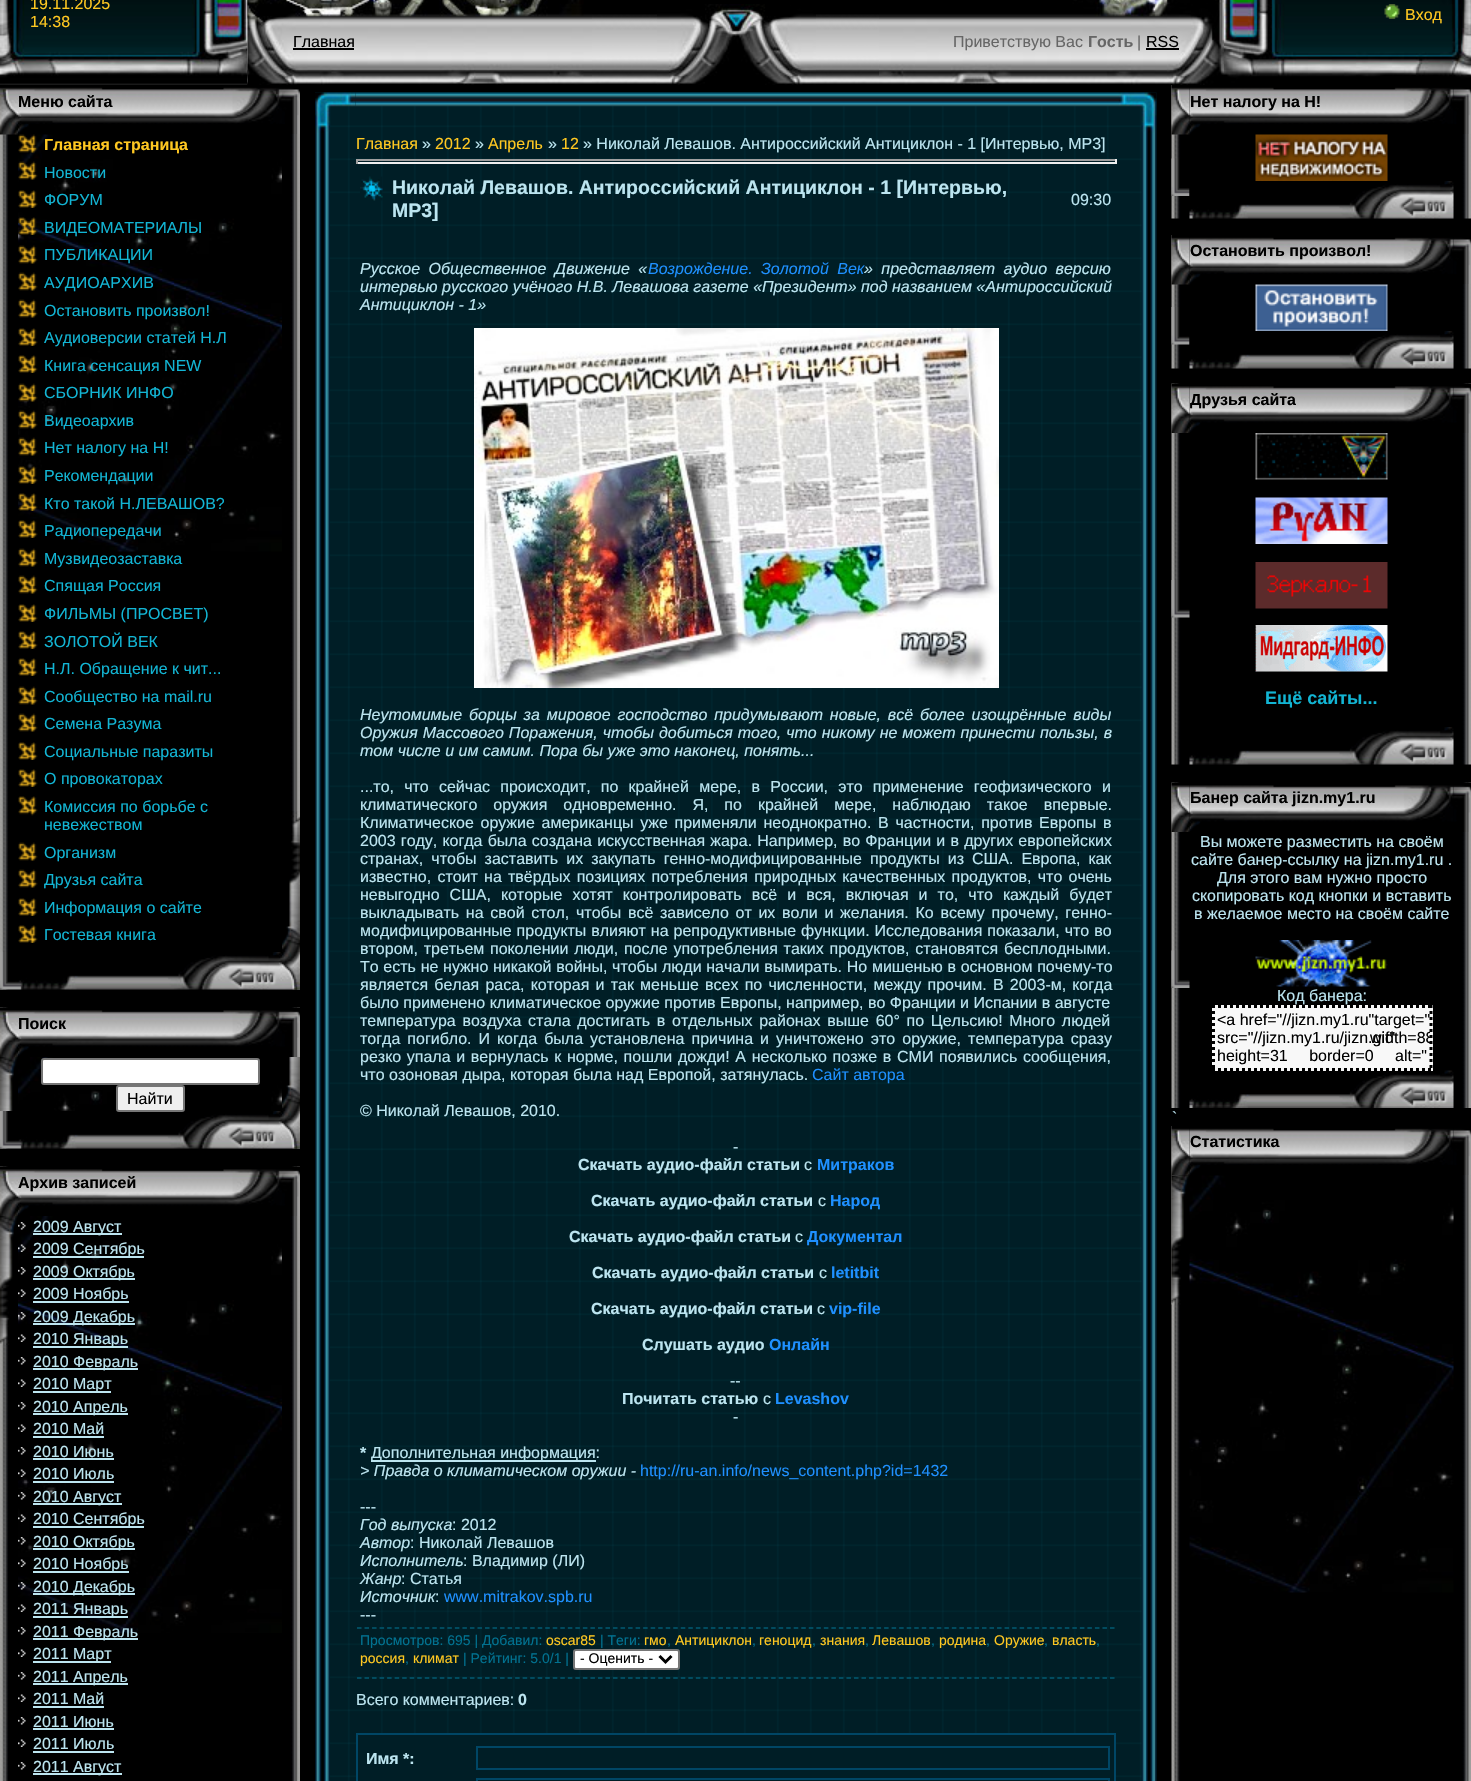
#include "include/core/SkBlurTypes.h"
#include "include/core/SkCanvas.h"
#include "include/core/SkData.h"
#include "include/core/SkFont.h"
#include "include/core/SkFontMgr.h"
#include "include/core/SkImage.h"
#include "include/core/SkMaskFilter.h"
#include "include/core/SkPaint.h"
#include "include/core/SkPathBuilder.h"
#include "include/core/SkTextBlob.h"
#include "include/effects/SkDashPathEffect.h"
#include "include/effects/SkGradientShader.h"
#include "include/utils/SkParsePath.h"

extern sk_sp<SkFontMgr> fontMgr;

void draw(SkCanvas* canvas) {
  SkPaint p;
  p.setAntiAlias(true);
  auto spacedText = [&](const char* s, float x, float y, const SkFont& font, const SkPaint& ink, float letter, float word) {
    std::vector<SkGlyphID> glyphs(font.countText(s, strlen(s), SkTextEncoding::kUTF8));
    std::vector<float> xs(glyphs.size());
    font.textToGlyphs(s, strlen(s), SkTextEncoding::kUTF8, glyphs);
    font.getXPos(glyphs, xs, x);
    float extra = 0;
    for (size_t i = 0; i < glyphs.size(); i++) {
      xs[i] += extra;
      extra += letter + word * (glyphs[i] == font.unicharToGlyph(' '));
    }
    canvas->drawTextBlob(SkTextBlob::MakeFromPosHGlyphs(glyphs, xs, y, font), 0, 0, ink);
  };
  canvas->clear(SK_ColorBLACK);
  canvas->drawImageRect(SkImages::DeferredFromEncodedData(SkData::MakeFromFileName("images/1.png")), SkRect::MakeLTRB(247, 14, 879, 84), SkSamplingOptions());
  canvas->drawImageRect(SkImages::DeferredFromEncodedData(SkData::MakeFromFileName("images/2.png")), SkRect::MakeLTRB(0, 0, 248, 85), SkSamplingOptions());
  canvas->drawImageRect(SkImages::DeferredFromEncodedData(SkData::MakeFromFileName("images/3.png")), SkRect::MakeLTRB(657, 4, 816, 85), SkSamplingOptions());
  canvas->drawImageRect(SkImages::DeferredFromEncodedData(SkData::MakeFromFileName("images/4.png")), SkRect::MakeLTRB(1224, 0, 1471, 84), SkSamplingOptions());
  canvas->drawImageRect(SkImages::DeferredFromEncodedData(SkData::MakeFromFileName("images/5.png")), SkRect::MakeLTRB(1384, 4, 1400, 19), SkSamplingOptions());
  canvas->drawImageRect(SkImages::DeferredFromEncodedData(SkData::MakeFromFileName("images/6.png")), SkRect::MakeLTRB(247, 0, 592, 85), SkSamplingOptions());
  p.setColor(SK_ColorBLACK);
  canvas->drawRect(SkRect::MakeLTRB(293, 48, 354, 50), p);
  canvas->drawImageRect(SkImages::DeferredFromEncodedData(SkData::MakeFromFileName("images/7.png")), SkRect::MakeLTRB(879, 0, 1224, 85), SkSamplingOptions());
  canvas->drawRect(SkRect::MakeLTRB(1146, 48, 1179, 50), p);
  canvas->drawImageRect(SkImages::DeferredFromEncodedData(SkData::MakeFromFileName("images/8.png")), SkRect::MakeLTRB(0, 85, 300, 990), SkSamplingOptions());
  canvas->drawImageRect(SkImages::DeferredFromEncodedData(SkData::MakeFromFileName("images/9.png")), SkRect::MakeLTRB(0, 85, 18, 135), SkSamplingOptions());
  canvas->drawImageRect(SkImages::DeferredFromEncodedData(SkData::MakeFromFileName("images/10.png")), SkRect::MakeLTRB(18, 87, 282, 134), SkSamplingOptions());
  canvas->drawImageRect(SkImages::DeferredFromEncodedData(SkData::MakeFromFileName("images/11.png")), SkRect::MakeLTRB(282, 85, 300, 134), SkSamplingOptions());
  canvas->drawImageRect(SkImages::DeferredFromEncodedData(SkData::MakeFromFileName("images/12.png")), SkRect::MakeLTRB(18, 134, 282, 552), SkSamplingOptions());
  canvas->drawImageRect(SkImages::DeferredFromEncodedData(SkData::MakeFromFileName("images/13.png")), SkRect::MakeLTRB(18, 134, 38, 153), SkSamplingOptions());
  canvas->drawImageRect(SkImages::DeferredFromEncodedData(SkData::MakeFromFileName("images/14.png")), SkRect::MakeLTRB(18, 161, 38, 180), SkSamplingOptions());
  canvas->drawImageRect(SkImages::DeferredFromEncodedData(SkData::MakeFromFileName("images/15.png")), SkRect::MakeLTRB(18, 190, 38, 208), SkSamplingOptions());
  canvas->drawImageRect(SkImages::DeferredFromEncodedData(SkData::MakeFromFileName("images/16.png")), SkRect::MakeLTRB(18, 217, 38, 235), SkSamplingOptions());
  canvas->drawImageRect(SkImages::DeferredFromEncodedData(SkData::MakeFromFileName("images/17.png")), SkRect::MakeLTRB(18, 245, 38, 264), SkSamplingOptions());
  canvas->drawImageRect(SkImages::DeferredFromEncodedData(SkData::MakeFromFileName("images/17.png")), SkRect::MakeLTRB(18, 272, 38, 291), SkSamplingOptions());
  canvas->drawImageRect(SkImages::DeferredFromEncodedData(SkData::MakeFromFileName("images/17.png")), SkRect::MakeLTRB(18, 299, 38, 318), SkSamplingOptions());
  canvas->drawImageRect(SkImages::DeferredFromEncodedData(SkData::MakeFromFileName("images/15.png")), SkRect::MakeLTRB(18, 328, 38, 346), SkSamplingOptions());
  canvas->drawImageRect(SkImages::DeferredFromEncodedData(SkData::MakeFromFileName("images/15.png")), SkRect::MakeLTRB(18, 355, 38, 373), SkSamplingOptions());
  canvas->drawImageRect(SkImages::DeferredFromEncodedData(SkData::MakeFromFileName("images/18.png")), SkRect::MakeLTRB(18, 383, 38, 402), SkSamplingOptions());
  canvas->drawImageRect(SkImages::DeferredFromEncodedData(SkData::MakeFromFileName("images/19.png")), SkRect::MakeLTRB(18, 410, 38, 429), SkSamplingOptions());
  canvas->drawImageRect(SkImages::DeferredFromEncodedData(SkData::MakeFromFileName("images/20.png")), SkRect::MakeLTRB(18, 437, 38, 456), SkSamplingOptions());
  canvas->drawImageRect(SkImages::DeferredFromEncodedData(SkData::MakeFromFileName("images/21.png")), SkRect::MakeLTRB(18, 466, 38, 484), SkSamplingOptions());
  canvas->drawImageRect(SkImages::DeferredFromEncodedData(SkData::MakeFromFileName("images/22.png")), SkRect::MakeLTRB(18, 493, 38, 511), SkSamplingOptions());
  canvas->drawImageRect(SkImages::DeferredFromEncodedData(SkData::MakeFromFileName("images/15.png")), SkRect::MakeLTRB(18, 520, 38, 538), SkSamplingOptions());
  canvas->drawImageRect(SkImages::DeferredFromEncodedData(SkData::MakeFromFileName("images/17.png")), SkRect::MakeLTRB(18, 548, 38, 567), SkSamplingOptions());
  canvas->drawImageRect(SkImages::DeferredFromEncodedData(SkData::MakeFromFileName("images/17.png")), SkRect::MakeLTRB(18, 575, 38, 594), SkSamplingOptions());
  canvas->drawImageRect(SkImages::DeferredFromEncodedData(SkData::MakeFromFileName("images/15.png")), SkRect::MakeLTRB(18, 604, 38, 622), SkSamplingOptions());
  canvas->drawImageRect(SkImages::DeferredFromEncodedData(SkData::MakeFromFileName("images/15.png")), SkRect::MakeLTRB(18, 631, 38, 649), SkSamplingOptions());
  canvas->drawImageRect(SkImages::DeferredFromEncodedData(SkData::MakeFromFileName("images/15.png")), SkRect::MakeLTRB(18, 658, 38, 676), SkSamplingOptions());
  canvas->drawImageRect(SkImages::DeferredFromEncodedData(SkData::MakeFromFileName("images/17.png")), SkRect::MakeLTRB(18, 686, 38, 705), SkSamplingOptions());
  canvas->drawImageRect(SkImages::DeferredFromEncodedData(SkData::MakeFromFileName("images/17.png")), SkRect::MakeLTRB(18, 713, 38, 732), SkSamplingOptions());
  canvas->drawImageRect(SkImages::DeferredFromEncodedData(SkData::MakeFromFileName("images/15.png")), SkRect::MakeLTRB(18, 742, 38, 760), SkSamplingOptions());
  canvas->drawImageRect(SkImages::DeferredFromEncodedData(SkData::MakeFromFileName("images/15.png")), SkRect::MakeLTRB(18, 769, 38, 787), SkSamplingOptions());
  canvas->drawImageRect(SkImages::DeferredFromEncodedData(SkData::MakeFromFileName("images/23.png")), SkRect::MakeLTRB(18, 796, 38, 816), SkSamplingOptions());
  canvas->drawImageRect(SkImages::DeferredFromEncodedData(SkData::MakeFromFileName("images/17.png")), SkRect::MakeLTRB(18, 842, 38, 861), SkSamplingOptions());
  canvas->drawImageRect(SkImages::DeferredFromEncodedData(SkData::MakeFromFileName("images/17.png")), SkRect::MakeLTRB(18, 869, 38, 888), SkSamplingOptions());
  canvas->drawImageRect(SkImages::DeferredFromEncodedData(SkData::MakeFromFileName("images/15.png")), SkRect::MakeLTRB(18, 898, 38, 916), SkSamplingOptions());
  canvas->drawImageRect(SkImages::DeferredFromEncodedData(SkData::MakeFromFileName("images/15.png")), SkRect::MakeLTRB(18, 925, 38, 943), SkSamplingOptions());
  canvas->drawImageRect(SkImages::DeferredFromEncodedData(SkData::MakeFromFileName("images/24.png")), SkRect::MakeLTRB(282, 811, 300, 952), SkSamplingOptions());
  canvas->drawImageRect(SkImages::DeferredFromEncodedData(SkData::MakeFromFileName("images/25.png")), SkRect::MakeLTRB(0, 952, 18, 990), SkSamplingOptions());
  canvas->drawImageRect(SkImages::DeferredFromEncodedData(SkData::MakeFromFileName("images/26.png")), SkRect::MakeLTRB(18, 952, 282, 990), SkSamplingOptions());
  canvas->drawImageRect(SkImages::DeferredFromEncodedData(SkData::MakeFromFileName("images/27.png")), SkRect::MakeLTRB(282, 952, 300, 990), SkSamplingOptions());
  canvas->drawImageRect(SkImages::DeferredFromEncodedData(SkData::MakeFromFileName("images/28.png")), SkRect::MakeLTRB(0, 1007, 300, 1149), SkSamplingOptions());
  canvas->drawImageRect(SkImages::DeferredFromEncodedData(SkData::MakeFromFileName("images/29.png")), SkRect::MakeLTRB(0, 1007, 18, 1057), SkSamplingOptions());
  canvas->drawImageRect(SkImages::DeferredFromEncodedData(SkData::MakeFromFileName("images/30.png")), SkRect::MakeLTRB(18, 1010, 282, 1056), SkSamplingOptions());
  canvas->drawImageRect(SkImages::DeferredFromEncodedData(SkData::MakeFromFileName("images/31.png")), SkRect::MakeLTRB(282, 1007, 300, 1057), SkSamplingOptions());
  canvas->drawImageRect(SkImages::DeferredFromEncodedData(SkData::MakeFromFileName("images/32.png")), SkRect::MakeLTRB(0, 1057, 18, 1111), SkSamplingOptions());
  canvas->drawImageRect(SkImages::DeferredFromEncodedData(SkData::MakeFromFileName("images/33.png")), SkRect::MakeLTRB(18, 1057, 282, 1111), SkSamplingOptions());
  p.setColor(SK_ColorWHITE);
  canvas->drawRoundRect(SkRect::MakeLTRB(42, 1059, 259, 1084), 2, 2, p);
  p.setStyle(SkPaint::kStroke_Style);
  p.setStrokeWidth(2);
  p.setColor(SkColorSetRGB(118, 118, 118));
  canvas->drawRoundRect(SkRect::MakeLTRB(42, 1059, 259, 1084), 2, 2, p);
  canvas->drawImageRect(SkImages::DeferredFromEncodedData(SkData::MakeFromFileName("images/26.png")), SkRect::MakeLTRB(18, 1111, 282, 1149), SkSamplingOptions());
  p.setStyle(SkPaint::kFill_Style);
  p.setColor(SkColorSetRGB(239, 239, 239));
  canvas->drawRoundRect(SkRect::MakeLTRB(117, 1086, 184, 1111), 2, 2, p);
  p.setStyle(SkPaint::kStroke_Style);
  p.setColor(SkColorSetRGB(118, 118, 118));
  canvas->drawRoundRect(SkRect::MakeLTRB(117, 1086, 184, 1111), 2, 2, p);
  canvas->drawImageRect(SkImages::DeferredFromEncodedData(SkData::MakeFromFileName("images/34.png")), SkRect::MakeLTRB(282, 1057, 300, 1111), SkSamplingOptions());
  canvas->drawImageRect(SkImages::DeferredFromEncodedData(SkData::MakeFromFileName("images/35.png")), SkRect::MakeLTRB(0, 1111, 18, 1149), SkSamplingOptions());
  canvas->drawImageRect(SkImages::DeferredFromEncodedData(SkData::MakeFromFileName("images/36.png")), SkRect::MakeLTRB(282, 1111, 300, 1149), SkSamplingOptions());
  canvas->drawImageRect(SkImages::DeferredFromEncodedData(SkData::MakeFromFileName("images/37.png")), SkRect::MakeLTRB(0, 1166, 300, 1781), SkSamplingOptions());
  canvas->drawImageRect(SkImages::DeferredFromEncodedData(SkData::MakeFromFileName("images/29.png")), SkRect::MakeLTRB(0, 1166, 18, 1216), SkSamplingOptions());
  canvas->drawImageRect(SkImages::DeferredFromEncodedData(SkData::MakeFromFileName("images/30.png")), SkRect::MakeLTRB(18, 1169, 282, 1215), SkSamplingOptions());
  canvas->drawImageRect(SkImages::DeferredFromEncodedData(SkData::MakeFromFileName("images/31.png")), SkRect::MakeLTRB(282, 1166, 300, 1216), SkSamplingOptions());
  canvas->drawImageRect(SkImages::DeferredFromEncodedData(SkData::MakeFromFileName("images/38.png")), SkRect::MakeLTRB(0, 1216, 18, 1345), SkSamplingOptions());
  canvas->drawImageRect(SkImages::DeferredFromEncodedData(SkData::MakeFromFileName("images/39.png")), SkRect::MakeLTRB(18, 1216, 282, 1633), SkSamplingOptions());
  canvas->drawImageRect(SkImages::DeferredFromEncodedData(SkData::MakeFromFileName("images/40.png")), SkRect::MakeLTRB(18, 1222, 26, 1230), SkSamplingOptions());
  p.setStyle(SkPaint::kFill_Style);
  p.setColor(SkColorSetRGB(188, 229, 240));
  canvas->drawRect(SkRect::MakeLTRB(33, 1233, 122, 1235), p);
  canvas->drawImageRect(SkImages::DeferredFromEncodedData(SkData::MakeFromFileName("images/41.png")), SkRect::MakeLTRB(18, 1244, 26, 1252), SkSamplingOptions());
  canvas->drawRect(SkRect::MakeLTRB(33, 1256, 144, 1258), p);
  canvas->drawImageRect(SkImages::DeferredFromEncodedData(SkData::MakeFromFileName("images/42.png")), SkRect::MakeLTRB(18, 1267, 26, 1275), SkSamplingOptions());
  canvas->drawRect(SkRect::MakeLTRB(33, 1278, 135, 1280), p);
  canvas->drawImageRect(SkImages::DeferredFromEncodedData(SkData::MakeFromFileName("images/43.png")), SkRect::MakeLTRB(18, 1289, 26, 1297), SkSamplingOptions());
  canvas->drawRect(SkRect::MakeLTRB(33, 1301, 129, 1303), p);
  canvas->drawImageRect(SkImages::DeferredFromEncodedData(SkData::MakeFromFileName("images/44.png")), SkRect::MakeLTRB(18, 1312, 26, 1320), SkSamplingOptions());
  canvas->drawRect(SkRect::MakeLTRB(33, 1323, 135, 1325), p);
  canvas->drawImageRect(SkImages::DeferredFromEncodedData(SkData::MakeFromFileName("images/45.png")), SkRect::MakeLTRB(18, 1334, 26, 1342), SkSamplingOptions());
  canvas->drawRect(SkRect::MakeLTRB(33, 1346, 128, 1348), p);
  canvas->drawImageRect(SkImages::DeferredFromEncodedData(SkData::MakeFromFileName("images/42.png")), SkRect::MakeLTRB(18, 1357, 26, 1365), SkSamplingOptions());
  canvas->drawRect(SkRect::MakeLTRB(33, 1368, 138, 1370), p);
  canvas->drawImageRect(SkImages::DeferredFromEncodedData(SkData::MakeFromFileName("images/45.png")), SkRect::MakeLTRB(18, 1379, 26, 1387), SkSamplingOptions());
  canvas->drawRect(SkRect::MakeLTRB(33, 1391, 111, 1393), p);
  canvas->drawImageRect(SkImages::DeferredFromEncodedData(SkData::MakeFromFileName("images/42.png")), SkRect::MakeLTRB(18, 1402, 26, 1410), SkSamplingOptions());
  canvas->drawRect(SkRect::MakeLTRB(33, 1413, 128, 1415), p);
  canvas->drawImageRect(SkImages::DeferredFromEncodedData(SkData::MakeFromFileName("images/45.png")), SkRect::MakeLTRB(18, 1424, 26, 1432), SkSamplingOptions());
  canvas->drawRect(SkRect::MakeLTRB(33, 1436, 104, 1438), p);
  canvas->drawImageRect(SkImages::DeferredFromEncodedData(SkData::MakeFromFileName("images/42.png")), SkRect::MakeLTRB(18, 1447, 26, 1455), SkSamplingOptions());
  canvas->drawRect(SkRect::MakeLTRB(33, 1458, 114, 1460), p);
  canvas->drawImageRect(SkImages::DeferredFromEncodedData(SkData::MakeFromFileName("images/46.png")), SkRect::MakeLTRB(18, 1469, 26, 1477), SkSamplingOptions());
  canvas->drawRect(SkRect::MakeLTRB(33, 1481, 114, 1483), p);
  canvas->drawImageRect(SkImages::DeferredFromEncodedData(SkData::MakeFromFileName("images/42.png")), SkRect::MakeLTRB(18, 1492, 26, 1500), SkSamplingOptions());
  canvas->drawRect(SkRect::MakeLTRB(33, 1503, 122, 1505), p);
  canvas->drawImageRect(SkImages::DeferredFromEncodedData(SkData::MakeFromFileName("images/47.png")), SkRect::MakeLTRB(18, 1514, 26, 1522), SkSamplingOptions());
  canvas->drawRect(SkRect::MakeLTRB(33, 1526, 144, 1528), p);
  canvas->drawImageRect(SkImages::DeferredFromEncodedData(SkData::MakeFromFileName("images/48.png")), SkRect::MakeLTRB(18, 1537, 26, 1545), SkSamplingOptions());
  canvas->drawRect(SkRect::MakeLTRB(33, 1548, 135, 1550), p);
  canvas->drawImageRect(SkImages::DeferredFromEncodedData(SkData::MakeFromFileName("images/45.png")), SkRect::MakeLTRB(18, 1559, 26, 1567), SkSamplingOptions());
  canvas->drawRect(SkRect::MakeLTRB(33, 1571, 129, 1573), p);
  canvas->drawImageRect(SkImages::DeferredFromEncodedData(SkData::MakeFromFileName("images/49.png")), SkRect::MakeLTRB(18, 1582, 26, 1590), SkSamplingOptions());
  canvas->drawRect(SkRect::MakeLTRB(33, 1593, 135, 1595), p);
  canvas->drawImageRect(SkImages::DeferredFromEncodedData(SkData::MakeFromFileName("images/45.png")), SkRect::MakeLTRB(18, 1604, 26, 1612), SkSamplingOptions());
  canvas->drawRect(SkRect::MakeLTRB(33, 1616, 128, 1618), p);
  canvas->drawImageRect(SkImages::DeferredFromEncodedData(SkData::MakeFromFileName("images/42.png")), SkRect::MakeLTRB(18, 1627, 26, 1635), SkSamplingOptions());
  canvas->drawRect(SkRect::MakeLTRB(33, 1638, 138, 1640), p);
  canvas->drawImageRect(SkImages::DeferredFromEncodedData(SkData::MakeFromFileName("images/45.png")), SkRect::MakeLTRB(18, 1649, 26, 1657), SkSamplingOptions());
  canvas->drawRect(SkRect::MakeLTRB(33, 1661, 111, 1663), p);
  canvas->drawImageRect(SkImages::DeferredFromEncodedData(SkData::MakeFromFileName("images/42.png")), SkRect::MakeLTRB(18, 1672, 26, 1680), SkSamplingOptions());
  canvas->drawRect(SkRect::MakeLTRB(33, 1683, 128, 1685), p);
  canvas->drawImageRect(SkImages::DeferredFromEncodedData(SkData::MakeFromFileName("images/45.png")), SkRect::MakeLTRB(18, 1694, 26, 1702), SkSamplingOptions());
  canvas->drawRect(SkRect::MakeLTRB(33, 1706, 104, 1708), p);
  canvas->drawImageRect(SkImages::DeferredFromEncodedData(SkData::MakeFromFileName("images/42.png")), SkRect::MakeLTRB(18, 1717, 26, 1725), SkSamplingOptions());
  canvas->drawRect(SkRect::MakeLTRB(33, 1728, 114, 1730), p);
  canvas->drawImageRect(SkImages::DeferredFromEncodedData(SkData::MakeFromFileName("images/45.png")), SkRect::MakeLTRB(18, 1739, 26, 1747), SkSamplingOptions());
  canvas->drawRect(SkRect::MakeLTRB(33, 1751, 114, 1753), p);
  canvas->drawImageRect(SkImages::DeferredFromEncodedData(SkData::MakeFromFileName("images/42.png")), SkRect::MakeLTRB(18, 1762, 26, 1770), SkSamplingOptions());
  canvas->drawRect(SkRect::MakeLTRB(33, 1773, 122, 1775), p);
  canvas->drawImageRect(SkImages::DeferredFromEncodedData(SkData::MakeFromFileName("images/50.png")), SkRect::MakeLTRB(315, 92, 1157, 1781), SkSamplingOptions());
  canvas->drawImageRect(SkImages::DeferredFromEncodedData(SkData::MakeFromFileName("images/52.png")), SkRect::MakeLTRB(355, 92, 1116, 107), SkSamplingOptions());
  canvas->drawImageRect(SkImages::DeferredFromEncodedData(SkData::MakeFromFileName("images/51.png")), SkRect::MakeLTRB(315, 92, 356, 133), SkSamplingOptions());
  canvas->drawImageRect(SkImages::DeferredFromEncodedData(SkData::MakeFromFileName("images/53.png")), SkRect::MakeLTRB(1116, 92, 1157, 133), SkSamplingOptions());
  canvas->drawImageRect(SkImages::DeferredFromEncodedData(SkData::MakeFromFileName("images/54.png")), SkRect::MakeLTRB(315, 133, 330, 1781), SkSamplingOptions());
  p.setColor(SkColorSetRGB(159, 159, 159));
  canvas->drawRect(SkRect::MakeLTRB(356, 159, 1116, 161), p);
  p.setColor(SkColorSetRGB(238, 238, 238));
  canvas->drawRect(SkRect::MakeLTRB(1115, 159, 1117, 164), p);
  canvas->drawRect(SkRect::MakeLTRB(356, 162, 1116, 164), p);
  p.setColor(SkColorSetRGB(159, 159, 159));
  canvas->drawRect(SkRect::MakeLTRB(356, 159, 358, 164), p);
  canvas->drawImageRect(SkImages::DeferredFromEncodedData(SkData::MakeFromFileName("images/55.png")), SkRect::MakeLTRB(360, 176, 383, 201), SkSamplingOptions());
  canvas->drawImageRect(SkImages::DeferredFromEncodedData(SkData::MakeFromFileName("images/56.png")), SkRect::MakeLTRB(474, 328, 999, 688), SkSamplingOptions());
  p.setColor(SkColorSetRGB(188, 229, 240));
  canvas->drawRect(SkRect::MakeLTRB(371, 1460, 596, 1462), p);
  p.setStyle(SkPaint::kStroke_Style);
  p.setStrokeWidth(1.5f);
  p.setColor(SkColorSetRGB(1, 89, 113));
  p.setPathEffect(SkDashPathEffect::Make({{4.5f, 3.03f}}, 0));
  canvas->drawPath(SkPathBuilder().moveTo(357, 1628).lineTo(1114.5f, 1628).detach(), p);
  p.setPathEffect(nullptr);
  p.setPathEffect(SkDashPathEffect::Make({{4.5f, 3.03f}}, 0));
  canvas->drawPath(SkPathBuilder().moveTo(357, 1678).lineTo(1114.5f, 1678).detach(), p);
  p.setPathEffect(nullptr);
  p.setStyle(SkPaint::kFill_Style);
  p.setColor(SK_ColorWHITE);
  canvas->drawRoundRect(SkRect::MakeLTRB(574, 1650, 679, 1669), 2, 2, p);
  p.setStyle(SkPaint::kStroke_Style);
  p.setStrokeWidth(2);
  p.setColor(SkColorSetRGB(118, 118, 118));
  canvas->drawRoundRect(SkRect::MakeLTRB(574, 1650, 679, 1669), 2, 2, p);
  p.setStrokeWidth(3);
  p.setColor(SK_ColorBLACK);
  canvas->drawPath(SkPathBuilder().moveTo(659.5f, 1656).lineTo(665.5f, 1662).lineTo(671.5f, 1656).detach(), p);
  p.setStyle(SkPaint::kFill_Style);
  p.setColor(SkColorSetRGB(0, 30, 38));
  canvas->drawRect(SkRect::MakeLTRB(357, 1734, 1115, 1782), p);
  p.setStyle(SkPaint::kStroke_Style);
  p.setStrokeWidth(2);
  p.setColor(SkColorSetRGB(0, 70, 101));
  canvas->drawRect(SkRect::MakeLTRB(357, 1734, 1115, 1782), p);
  canvas->drawRect(SkRect::MakeLTRB(477, 1747, 1109, 1769), p);
  canvas->drawRect(SkRect::MakeLTRB(477, 1779, 1109, 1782), p);
  canvas->drawImageRect(SkImages::DeferredFromEncodedData(SkData::MakeFromFileName("images/57.png")), SkRect::MakeLTRB(1141, 133, 1157, 1781), SkSamplingOptions());
  canvas->drawImageRect(SkImages::DeferredFromEncodedData(SkData::MakeFromFileName("images/58.png")), SkRect::MakeLTRB(1171, 85, 1471, 219), SkSamplingOptions());
  canvas->drawImageRect(SkImages::DeferredFromEncodedData(SkData::MakeFromFileName("images/60.png")), SkRect::MakeLTRB(1189, 87, 1454, 134), SkSamplingOptions());
  canvas->drawImageRect(SkImages::DeferredFromEncodedData(SkData::MakeFromFileName("images/59.png")), SkRect::MakeLTRB(1171, 85, 1190, 135), SkSamplingOptions());
  canvas->drawImageRect(SkImages::DeferredFromEncodedData(SkData::MakeFromFileName("images/61.png")), SkRect::MakeLTRB(1453, 85, 1471, 134), SkSamplingOptions());
  canvas->drawImageRect(SkImages::DeferredFromEncodedData(SkData::MakeFromFileName("images/62.png")), SkRect::MakeLTRB(1171, 158, 1190, 196), SkSamplingOptions());
  canvas->drawImageRect(SkImages::DeferredFromEncodedData(SkData::MakeFromFileName("images/63.png")), SkRect::MakeLTRB(1255, 134, 1388, 181), SkSamplingOptions());
  canvas->drawImageRect(SkImages::DeferredFromEncodedData(SkData::MakeFromFileName("images/64.png")), SkRect::MakeLTRB(1189, 181, 1454, 219), SkSamplingOptions());
  canvas->drawImageRect(SkImages::DeferredFromEncodedData(SkData::MakeFromFileName("images/65.png")), SkRect::MakeLTRB(1171, 235, 1471, 369), SkSamplingOptions());
  canvas->drawImageRect(SkImages::DeferredFromEncodedData(SkData::MakeFromFileName("images/60.png")), SkRect::MakeLTRB(1189, 237, 1454, 284), SkSamplingOptions());
  canvas->drawImageRect(SkImages::DeferredFromEncodedData(SkData::MakeFromFileName("images/59.png")), SkRect::MakeLTRB(1171, 235, 1190, 285), SkSamplingOptions());
  canvas->drawImageRect(SkImages::DeferredFromEncodedData(SkData::MakeFromFileName("images/61.png")), SkRect::MakeLTRB(1453, 235, 1471, 284), SkSamplingOptions());
  canvas->drawImageRect(SkImages::DeferredFromEncodedData(SkData::MakeFromFileName("images/66.png")), SkRect::MakeLTRB(1171, 307, 1190, 345), SkSamplingOptions());
  canvas->drawImageRect(SkImages::DeferredFromEncodedData(SkData::MakeFromFileName("images/67.png")), SkRect::MakeLTRB(1255, 284, 1388, 331), SkSamplingOptions());
  canvas->drawImageRect(SkImages::DeferredFromEncodedData(SkData::MakeFromFileName("images/68.png")), SkRect::MakeLTRB(1189, 331, 1454, 369), SkSamplingOptions());
  canvas->drawImageRect(SkImages::DeferredFromEncodedData(SkData::MakeFromFileName("images/69.png")), SkRect::MakeLTRB(1171, 383, 1471, 765), SkSamplingOptions());
  canvas->drawImageRect(SkImages::DeferredFromEncodedData(SkData::MakeFromFileName("images/71.png")), SkRect::MakeLTRB(1189, 386, 1454, 432), SkSamplingOptions());
  canvas->drawImageRect(SkImages::DeferredFromEncodedData(SkData::MakeFromFileName("images/70.png")), SkRect::MakeLTRB(1171, 383, 1190, 433), SkSamplingOptions());
  canvas->drawImageRect(SkImages::DeferredFromEncodedData(SkData::MakeFromFileName("images/72.png")), SkRect::MakeLTRB(1453, 383, 1471, 433), SkSamplingOptions());
  canvas->drawImageRect(SkImages::DeferredFromEncodedData(SkData::MakeFromFileName("images/73.png")), SkRect::MakeLTRB(1171, 580, 1190, 618), SkSamplingOptions());
  canvas->drawImageRect(SkImages::DeferredFromEncodedData(SkData::MakeFromFileName("images/74.png")), SkRect::MakeLTRB(1255, 433, 1388, 480), SkSamplingOptions());
  canvas->drawImageRect(SkImages::DeferredFromEncodedData(SkData::MakeFromFileName("images/75.png")), SkRect::MakeLTRB(1255, 497, 1388, 544), SkSamplingOptions());
  canvas->drawImageRect(SkImages::DeferredFromEncodedData(SkData::MakeFromFileName("images/76.png")), SkRect::MakeLTRB(1255, 562, 1388, 609), SkSamplingOptions());
  canvas->drawImageRect(SkImages::DeferredFromEncodedData(SkData::MakeFromFileName("images/77.png")), SkRect::MakeLTRB(1255, 625, 1388, 672), SkSamplingOptions());
  canvas->drawImageRect(SkImages::DeferredFromEncodedData(SkData::MakeFromFileName("images/78.png")), SkRect::MakeLTRB(1189, 727, 1454, 765), SkSamplingOptions());
  canvas->drawImageRect(SkImages::DeferredFromEncodedData(SkData::MakeFromFileName("images/79.png")), SkRect::MakeLTRB(1171, 782, 1471, 1108), SkSamplingOptions());
  canvas->drawImageRect(SkImages::DeferredFromEncodedData(SkData::MakeFromFileName("images/71.png")), SkRect::MakeLTRB(1189, 785, 1454, 831), SkSamplingOptions());
  canvas->drawImageRect(SkImages::DeferredFromEncodedData(SkData::MakeFromFileName("images/70.png")), SkRect::MakeLTRB(1171, 782, 1190, 832), SkSamplingOptions());
  canvas->drawImageRect(SkImages::DeferredFromEncodedData(SkData::MakeFromFileName("images/72.png")), SkRect::MakeLTRB(1453, 782, 1471, 832), SkSamplingOptions());
  canvas->drawImageRect(SkImages::DeferredFromEncodedData(SkData::MakeFromFileName("images/62.png")), SkRect::MakeLTRB(1171, 950, 1190, 988), SkSamplingOptions());
  canvas->drawImageRect(SkImages::DeferredFromEncodedData(SkData::MakeFromFileName("images/80.png")), SkRect::MakeLTRB(1255, 940, 1388, 987), SkSamplingOptions());
  canvas->drawImageRect(SkImages::DeferredFromEncodedData(SkData::MakeFromFileName("images/81.png")), SkRect::MakeLTRB(1189, 1070, 1454, 1108), SkSamplingOptions());
  p.setStyle(SkPaint::kFill_Style);
  p.setColor(SkColorSetRGB(248, 248, 248));
  canvas->drawRect(SkRect::MakeLTRB(1212, 1005, 1433, 1071), p);
  p.setStyle(SkPaint::kStroke_Style);
  p.setStrokeWidth(3);
  p.setColor(SK_ColorBLACK);
  p.setPathEffect(SkDashPathEffect::Make({{3, 3}}, 0));
  canvas->drawPath(SkPathBuilder().moveTo(1212, 1006.5f).lineTo(1432.5f, 1006.5f).detach(), p);
  p.setPathEffect(nullptr);
  p.setPathEffect(SkDashPathEffect::Make({{3, 3}}, 0));
  canvas->drawPath(SkPathBuilder().moveTo(1431, 1005).lineTo(1431, 1071).detach(), p);
  p.setPathEffect(nullptr);
  p.setPathEffect(SkDashPathEffect::Make({{3, 3}}, 0));
  canvas->drawPath(SkPathBuilder().moveTo(1212, 1069.5f).lineTo(1432.5f, 1069.5f).detach(), p);
  p.setPathEffect(nullptr);
  p.setPathEffect(SkDashPathEffect::Make({{3, 3}}, 0));
  canvas->drawPath(SkPathBuilder().moveTo(1213.5f, 1005).lineTo(1213.5f, 1071).detach(), p);
  p.setPathEffect(nullptr);
  canvas->drawImageRect(SkImages::DeferredFromEncodedData(SkData::MakeFromFileName("images/82.png")), SkRect::MakeLTRB(1171, 1126, 1471, 1781), SkSamplingOptions());
  canvas->drawImageRect(SkImages::DeferredFromEncodedData(SkData::MakeFromFileName("images/60.png")), SkRect::MakeLTRB(1189, 1128, 1454, 1175), SkSamplingOptions());
  canvas->drawImageRect(SkImages::DeferredFromEncodedData(SkData::MakeFromFileName("images/84.png")), SkRect::MakeLTRB(1171, 1175, 1189, 1305), SkSamplingOptions());
  canvas->drawImageRect(SkImages::DeferredFromEncodedData(SkData::MakeFromFileName("images/85.png")), SkRect::MakeLTRB(1189, 1175, 1454, 1593), SkSamplingOptions());
  canvas->drawImageRect(SkImages::DeferredFromEncodedData(SkData::MakeFromFileName("images/83.png")), SkRect::MakeLTRB(1171, 1126, 1190, 1176), SkSamplingOptions());
  canvas->drawImageRect(SkImages::DeferredFromEncodedData(SkData::MakeFromFileName("images/61.png")), SkRect::MakeLTRB(1453, 1126, 1471, 1175), SkSamplingOptions());
  SkFont font1(fontMgr->matchFamilyStyle("Liberation Sans", SkFontStyle::Normal()), 16);
  font1.setSubpixel(true);
  p.setStyle(SkPaint::kFill_Style);
  p.setColor(SkColorSetRGB(255, 200, 33));
  canvas->drawString("19.11.2025", 30, 9, font1, p);
  canvas->drawString("14:38", 30, 27, font1, p);
  canvas->drawString("Вход", 1405, 20, font1, p);
  p.setColor(SK_ColorBLACK);
  canvas->drawString("Главная", 293, 47, font1, p);
  p.setColor(SkColorSetRGB(102, 102, 102));
  canvas->drawString("Приветствую Вас", 953, 47, font1, p);
  SkFont font2(fontMgr->matchFamilyStyle("Liberation Sans", SkFontStyle::Bold()), 16);
  font2.setSubpixel(true);
  canvas->drawString("Гость", 1088, 47, font2, p);
  canvas->drawString("|", 1137, 47, font1, p);
  p.setColor(SK_ColorBLACK);
  canvas->drawString("RSS", 1146, 47, font1, p);
  canvas->drawString("Меню сайта", 18, 107, font2, p);
  p.setColor(SkColorSetRGB(255, 200, 33));
  canvas->drawString("Главная страница", 44, 150, font2, p);
  p.setColor(SkColorSetRGB(18, 181, 212));
  canvas->drawString("Новости", 44, 178, font1, p);
  canvas->drawString("ФОРУМ", 44, 205, font1, p);
  canvas->drawString("ВИДЕОМАТЕРИАЛЫ", 44, 233, font1, p);
  canvas->drawString("ПУБЛИКАЦИИ", 44, 260, font1, p);
  canvas->drawString("АУДИОАРХИВ", 44, 288, font1, p);
  canvas->drawString("Остановить произвол!", 44, 316, font1, p);
  canvas->drawString("Аудиоверсии статей Н.Л", 44, 343, font1, p);
  canvas->drawString("Книга сенсация NEW", 44, 371, font1, p);
  canvas->drawString("СБОРНИК ИНФО", 44, 398, font1, p);
  canvas->drawString("Видеоархив", 44, 426, font1, p);
  canvas->drawString("Нет налогу на Н!", 44, 453, font1, p);
  canvas->drawString("Рекомендации", 44, 481, font1, p);
  canvas->drawString("Кто такой Н.ЛЕВАШОВ?", 44, 509, font1, p);
  canvas->drawString("Радиопередачи", 44, 536, font1, p);
  canvas->drawString("Музвидеозаставка", 44, 564, font1, p);
  canvas->drawString("Спящая Россия", 44, 591, font1, p);
  canvas->drawString("ФИЛЬМЫ (ПРОСВЕТ)", 44, 619, font1, p);
  canvas->drawString("ЗОЛОТОЙ ВЕК", 44, 647, font1, p);
  canvas->drawString("Н.Л. Обращение к чит...", 44, 674, font1, p);
  canvas->drawString("Сообщество на mail.ru", 44, 702, font1, p);
  canvas->drawString("Семена Разума", 44, 729, font1, p);
  canvas->drawString("Социальные паразиты", 44, 757, font1, p);
  canvas->drawString("О провокаторах", 44, 784, font1, p);
  canvas->drawString("Комиссия по борьбе с", 44, 812, font1, p);
  canvas->drawString("невежеством", 44, 830, font1, p);
  canvas->drawString("Организм", 44, 858, font1, p);
  canvas->drawString("Друзья сайта", 44, 885, font1, p);
  canvas->drawString("Информация о сайте", 44, 913, font1, p);
  canvas->drawString("Гостевая книга", 44, 940, font1, p);
  p.setColor(SK_ColorBLACK);
  canvas->drawString("Поиск", 18, 1029, font2, p);
  canvas->drawString("Найти", 127, 1104, font1, p);
  canvas->drawString("Архив записей", 18, 1188, font2, p);
  p.setColor(SkColorSetRGB(188, 229, 240));
  canvas->drawString("2009 Август", 33, 1232, font1, p);
  canvas->drawString("2009 Сентябрь", 33, 1254, font1, p);
  canvas->drawString("2009 Октябрь", 33, 1277, font1, p);
  canvas->drawString("2009 Ноябрь", 33, 1299, font1, p);
  canvas->drawString("2009 Декабрь", 33, 1322, font1, p);
  canvas->drawString("2010 Январь", 33, 1344, font1, p);
  canvas->drawString("2010 Февраль", 33, 1367, font1, p);
  canvas->drawString("2010 Март", 33, 1389, font1, p);
  canvas->drawString("2010 Апрель", 33, 1412, font1, p);
  canvas->drawString("2010 Май", 33, 1434, font1, p);
  canvas->drawString("2010 Июнь", 33, 1457, font1, p);
  canvas->drawString("2010 Июль", 33, 1479, font1, p);
  canvas->drawString("2010 Август", 33, 1502, font1, p);
  canvas->drawString("2010 Сентябрь", 33, 1524, font1, p);
  canvas->drawString("2010 Октябрь", 33, 1547, font1, p);
  canvas->drawString("2010 Ноябрь", 33, 1569, font1, p);
  canvas->drawString("2010 Декабрь", 33, 1592, font1, p);
  canvas->drawString("2011 Январь", 33, 1614, font1, p);
  canvas->drawString("2011 Февраль", 33, 1637, font1, p);
  canvas->drawString("2011 Март", 33, 1659, font1, p);
  canvas->drawString("2011 Апрель", 33, 1682, font1, p);
  canvas->drawString("2011 Май", 33, 1704, font1, p);
  canvas->drawString("2011 Июнь", 33, 1727, font1, p);
  canvas->drawString("2011 Июль", 33, 1749, font1, p);
  canvas->drawString("2011 Август", 33, 1772, font1, p);
  p.setColor(SkColorSetRGB(255, 200, 33));
  canvas->drawString("Главная", 356, 149, font1, p);
  p.setColor(SkColorSetRGB(188, 229, 240));
  canvas->drawString("»", 422, 149, font1, p);
  p.setColor(SkColorSetRGB(255, 200, 33));
  canvas->drawString("2012", 435, 149, font1, p);
  p.setColor(SkColorSetRGB(188, 229, 240));
  canvas->drawString("»", 475, 149, font1, p);
  p.setColor(SkColorSetRGB(255, 200, 33));
  canvas->drawString("Апрель", 488, 149, font1, p);
  p.setColor(SkColorSetRGB(188, 229, 240));
  canvas->drawString("»", 548, 149, font1, p);
  p.setColor(SkColorSetRGB(255, 200, 33));
  canvas->drawString("12", 561, 149, font1, p);
  p.setColor(SkColorSetRGB(188, 229, 240));
  canvas->drawString("» Николай Левашов. Антироссийский Антициклон - 1 [Интервью, MP3]", 583, 149, font1, p);
  SkFont font3(fontMgr->matchFamilyStyle("Liberation Sans", SkFontStyle::Bold()), 19.5f);
  font3.setSubpixel(true);
  canvas->drawString("Николай Левашов. Антироссийский Антициклон - 1 [Интервью,", 392, 194, font3, p);
  canvas->drawString("MP3]", 392, 217, font3, p);
  canvas->drawString("09:30", 1071, 205, font1, p);
  SkFont font4(fontMgr->matchFamilyStyle("Liberation Sans", SkFontStyle::Italic()), 16);
  font4.setSubpixel(true);
  spacedText("Русское Общественное Движение «", 360, 274, font4, p, 0, 4);
  p.setColor(SkColorSetRGB(30, 144, 255));
  spacedText("Возрождение. Золотой Век", 648, 274, font4, p, 0, 4);
  p.setColor(SkColorSetRGB(188, 229, 240));
  spacedText("» представляет аудио версию", 864, 274, font4, p, 0, 4);
  canvas->drawString("интервью русского учёного Н.В. Левашова газете «Президент» под названием «Антироссийский", 360, 292, font4, p);
  canvas->drawString("Антициклон - 1»", 360, 310, font4, p);
  spacedText("Неутомимые борцы за мировое господство придумывают новые, всё более изощрённые виды", 360, 720, font4, p, 0, 2.4f);
  spacedText("Оружия Массового Поражения, чтобы добиться того, что никому не может принести пользы, в", 360, 738, font4, p, 0, 0.5f);
  canvas->drawString("том числе и им самим. Пора бы уже это наконец, понять...", 360, 756, font4, p);
  spacedText("...то, что сейчас происходит, по крайней мере, в России, это применение геофизического и", 360, 792, font1, p, 0, 5.75f);
  spacedText("климатического оружия одновременно. Я, по крайней мере, наблюдаю такое впервые.", 360, 810, font1, p, 0, 11.5f);
  spacedText("Климатическое оружие американцы уже применяли неоднократно. В частности, против Европы в", 360, 828, font1, p, 0, 2.25f);
  spacedText("2003 году, когда была создана искусственная жара. Например, во Франции и в других европейских", 360, 846, font1, p, 0, 0.75f);
  spacedText("странах, чтобы заставить их закупать генно-модифицированные продукты из США. Европа, как", 360, 864, font1, p, 0, 3.6f);
  spacedText("известно, стоит на твёрдых позициях потребления природных качественных продуктов, что очень", 360, 882, font1, p, 0, 1.75f);
  spacedText("невыгодно США, которые хотят контролировать всё и вся, включая и то, что каждый будет", 360, 900, font1, p, 0, 5.6f);
  spacedText("выкладывать на свой стол, чтобы всё зависело от их воли и желания. Ко всему прочему, генно-", 360, 918, font1, p, 0, 2.25f);
  spacedText("модифицированные продукты влияют на репродуктивные функции. Исследования показали, что во", 360, 936, font1, p, 0, 0.5f);
  spacedText("втором, третьем поколении люди, после употребления таких продуктов, становятся бесплодными.", 360, 954, font1, p, 0, 1.25f);
  spacedText("То есть не нужно никакой войны, чтобы люди начали вымирать. Но мишенью в основном почему-то", 360, 972, font1, p, 0, 0.25f);
  spacedText("является белая раса, которая и так меньше всех по численности, между прочим. В 2003-м, когда", 360, 990, font1, p, 0, 1.75f);
  canvas->drawString("было применено климатическое оружие против Европы, например, во Франции и Испании в августе", 360, 1008, font1, p);
  spacedText("температура воздуха стала достигать в отдельных районах выше 60° по Цельсию! Много людей", 360, 1026, font1, p, 0, 2.25f);
  spacedText("тогда погибло. И когда была установлена причина и уничтожено это оружие, температура сразу", 360, 1044, font1, p, 0, 2.6f);
  spacedText("резко упала и вернулась к норме, пошли дожди! А несколько позже в СМИ появились сообщения,", 360, 1062, font1, p, 0, 1.25f);
  canvas->drawString("что озоновая дыра, которая была над Европой, затянулась.", 360, 1080, font1, p);
  p.setColor(SkColorSetRGB(30, 144, 255));
  canvas->drawString("Сайт автора", 812, 1080, font1, p);
  p.setColor(SkColorSetRGB(188, 229, 240));
  canvas->drawString("© Николай Левашов, 2010.", 360, 1116, font1, p);
  canvas->drawString("-", 733, 1152, font1, p);
  canvas->drawString("Скачать аудио-файл статьи", 578, 1170, font2, p);
  canvas->drawString("с", 804, 1170, font1, p);
  p.setColor(SkColorSetRGB(30, 144, 255));
  canvas->drawString("Митраков", 817, 1170, font2, p);
  p.setColor(SkColorSetRGB(188, 229, 240));
  canvas->drawString("Скачать аудио-файл статьи", 591, 1206, font2, p);
  canvas->drawString("с", 818, 1206, font1, p);
  p.setColor(SkColorSetRGB(30, 144, 255));
  canvas->drawString("Народ", 830, 1206, font2, p);
  p.setColor(SkColorSetRGB(188, 229, 240));
  canvas->drawString("Скачать аудио-файл статьи", 569, 1242, font2, p);
  canvas->drawString("с", 795, 1242, font1, p);
  p.setColor(SkColorSetRGB(30, 144, 255));
  canvas->drawString("Документал", 807, 1242, font2, p);
  p.setColor(SkColorSetRGB(188, 229, 240));
  canvas->drawString("Скачать аудио-файл статьи", 592, 1278, font2, p);
  canvas->drawString("с", 819, 1278, font1, p);
  p.setColor(SkColorSetRGB(30, 144, 255));
  canvas->drawString("letitbit", 831, 1278, font2, p);
  p.setColor(SkColorSetRGB(188, 229, 240));
  canvas->drawString("Скачать аудио-файл статьи", 591, 1314, font2, p);
  canvas->drawString("с", 817, 1314, font1, p);
  p.setColor(SkColorSetRGB(30, 144, 255));
  canvas->drawString("vip-file", 829, 1314, font2, p);
  p.setColor(SkColorSetRGB(188, 229, 240));
  canvas->drawString("Слушать аудио", 642, 1350, font2, p);
  p.setColor(SkColorSetRGB(30, 144, 255));
  canvas->drawString("Онлайн", 769, 1350, font2, p);
  p.setColor(SkColorSetRGB(188, 229, 240));
  canvas->drawString("--", 730, 1386, font1, p);
  canvas->drawString("Почитать статью", 622, 1404, font2, p);
  canvas->drawString("с", 763, 1404, font1, p);
  p.setColor(SkColorSetRGB(30, 144, 255));
  canvas->drawString("Levashov", 775, 1404, font2, p);
  p.setColor(SkColorSetRGB(188, 229, 240));
  canvas->drawString("-", 733, 1422, font1, p);
  canvas->drawString("*", 360, 1458, font2, p);
  canvas->drawString("Дополнительная информация:", 371, 1458, font1, p);
  canvas->drawString("> Правда о климатическом оружии -", 360, 1476, font4, p);
  p.setColor(SkColorSetRGB(30, 144, 255));
  canvas->drawString("http://ru-an.info/news_content.php?id=1432", 640, 1476, font1, p);
  p.setColor(SkColorSetRGB(188, 229, 240));
  canvas->drawString("---", 360, 1512, font1, p);
  canvas->drawString("Год выпуска", 360, 1530, font4, p);
  canvas->drawString(": 2012", 452, 1530, font1, p);
  canvas->drawString("Автор", 360, 1548, font4, p);
  canvas->drawString(": Николай Левашов", 410, 1548, font1, p);
  canvas->drawString("Исполнитель", 360, 1566, font4, p);
  canvas->drawString(": Владимир (ЛИ)", 463, 1566, font1, p);
  canvas->drawString("Жанр", 360, 1584, font4, p);
  canvas->drawString(": Статья", 401, 1584, font1, p);
  canvas->drawString("Источник", 360, 1602, font4, p);
  canvas->drawString(":", 435, 1602, font1, p);
  p.setColor(SkColorSetRGB(30, 144, 255));
  canvas->drawString("www.mitrakov.spb.ru", 444, 1602, font1, p);
  p.setColor(SkColorSetRGB(188, 229, 240));
  canvas->drawString("---", 360, 1620, font1, p);
  SkFont font5(fontMgr->matchFamilyStyle("Liberation Sans", SkFontStyle::Normal()), 14);
  font5.setSubpixel(true);
  p.setColor(SkColorSetRGB(1, 114, 145));
  canvas->drawString("Просмотров: 695 | Добавил:", 360, 1645, font5, p);
  p.setColor(SkColorSetRGB(255, 200, 33));
  canvas->drawString("oscar85", 546, 1645, font5, p);
  p.setColor(SkColorSetRGB(1, 114, 145));
  canvas->drawString("| Теги:", 600, 1645, font5, p);
  p.setColor(SkColorSetRGB(255, 200, 33));
  canvas->drawString("гмо", 644, 1645, font5, p);
  p.setColor(SkColorSetRGB(1, 114, 145));
  canvas->drawString(",", 667, 1645, font5, p);
  p.setColor(SkColorSetRGB(255, 200, 33));
  canvas->drawString("Антициклон", 675, 1645, font5, p);
  p.setColor(SkColorSetRGB(1, 114, 145));
  canvas->drawString(",", 752, 1645, font5, p);
  p.setColor(SkColorSetRGB(255, 200, 33));
  canvas->drawString("геноцид", 759, 1645, font5, p);
  p.setColor(SkColorSetRGB(1, 114, 145));
  canvas->drawString(",", 812, 1645, font5, p);
  p.setColor(SkColorSetRGB(255, 200, 33));
  canvas->drawString("знания", 820, 1645, font5, p);
  p.setColor(SkColorSetRGB(1, 114, 145));
  canvas->drawString(",", 865, 1645, font5, p);
  p.setColor(SkColorSetRGB(255, 200, 33));
  canvas->drawString("Левашов", 872, 1645, font5, p);
  p.setColor(SkColorSetRGB(1, 114, 145));
  canvas->drawString(",", 931, 1645, font5, p);
  p.setColor(SkColorSetRGB(255, 200, 33));
  canvas->drawString("родина", 939, 1645, font5, p);
  p.setColor(SkColorSetRGB(1, 114, 145));
  canvas->drawString(",", 986, 1645, font5, p);
  p.setColor(SkColorSetRGB(255, 200, 33));
  canvas->drawString("Оружие", 994, 1645, font5, p);
  p.setColor(SkColorSetRGB(1, 114, 145));
  canvas->drawString(",", 1044, 1645, font5, p);
  p.setColor(SkColorSetRGB(255, 200, 33));
  canvas->drawString("власть", 1052, 1645, font5, p);
  p.setColor(SkColorSetRGB(1, 114, 145));
  canvas->drawString(",", 1096, 1645, font5, p);
  p.setColor(SkColorSetRGB(255, 200, 33));
  canvas->drawString("россия", 360, 1663, font5, p);
  p.setColor(SkColorSetRGB(1, 114, 145));
  canvas->drawString(",", 405, 1663, font5, p);
  p.setColor(SkColorSetRGB(255, 200, 33));
  canvas->drawString("климат", 413, 1663, font5, p);
  p.setColor(SkColorSetRGB(1, 114, 145));
  canvas->drawString("| Рейтинг: 5.0/1 |", 463, 1663, font5, p);
  p.setColor(SK_ColorBLACK);
  canvas->drawString("- Оценить -", 580, 1663, font5, p);
  p.setColor(SkColorSetRGB(188, 229, 240));
  canvas->drawString("Всего комментариев:", 356, 1705, font1, p);
  canvas->drawString("0", 518, 1705, font2, p);
  canvas->drawString("Имя *:", 366, 1764, font2, p);
  p.setColor(SK_ColorBLACK);
  canvas->drawString("Нет налогу на Н!", 1190, 107, font2, p);
  canvas->drawString("Остановить произвол!", 1190, 256, font2, p);
  canvas->drawString("Друзья сайта", 1190, 405, font2, p);
  SkFont font6(fontMgr->matchFamilyStyle("Liberation Sans", SkFontStyle::Bold()), 18);
  font6.setSubpixel(true);
  p.setColor(SkColorSetRGB(18, 181, 212));
  canvas->drawString("Ещё сайты...", 1265, 704, font6, p);
  p.setColor(SK_ColorBLACK);
  canvas->drawString("Банер сайта jizn.my1.ru", 1190, 803, font2, p);
  p.setColor(SkColorSetRGB(188, 229, 240));
  canvas->drawString("Вы можете разместить на своём", 1200, 847, font1, p);
  canvas->drawString("сайте банер-ссылку на jizn.my1.ru .", 1191, 865, font1, p);
  canvas->drawString("Для этого вам нужно просто", 1217, 883, font1, p);
  canvas->drawString("скопировать код кнопки и вставить", 1192, 901, font1, p);
  canvas->drawString("в желаемое место на своём сайте", 1194, 919, font1, p);
  canvas->drawString("Код банера:", 1277, 1001, font1, p);
  p.setColor(SK_ColorBLACK);
  canvas->drawString("<a href=\"//jizn.my1.ru\"target=\"", 1217, 1025, font1, p);
  canvas->drawString("src=\"//jizn.my1.ru/jizn.gif\"", 1217, 1043, font1, p);
  canvas->save();
  canvas->clipRect(SkRect::MakeLTRB(1215, 1008, 1430, 1068));
  canvas->drawString("width=88", 1370, 1043, font1, p);
  canvas->restore();
  spacedText("height=31 border=0", 1217, 1061, font1, p, 0, 17);
  canvas->drawString("alt=\"", 1395, 1061, font1, p);
  p.setColor(SkColorSetRGB(188, 229, 240));
  canvas->drawString("`", 1172, 1123, font1, p);
  p.setColor(SK_ColorBLACK);
  canvas->drawString("Статистика", 1190, 1147, font2, p);
}
